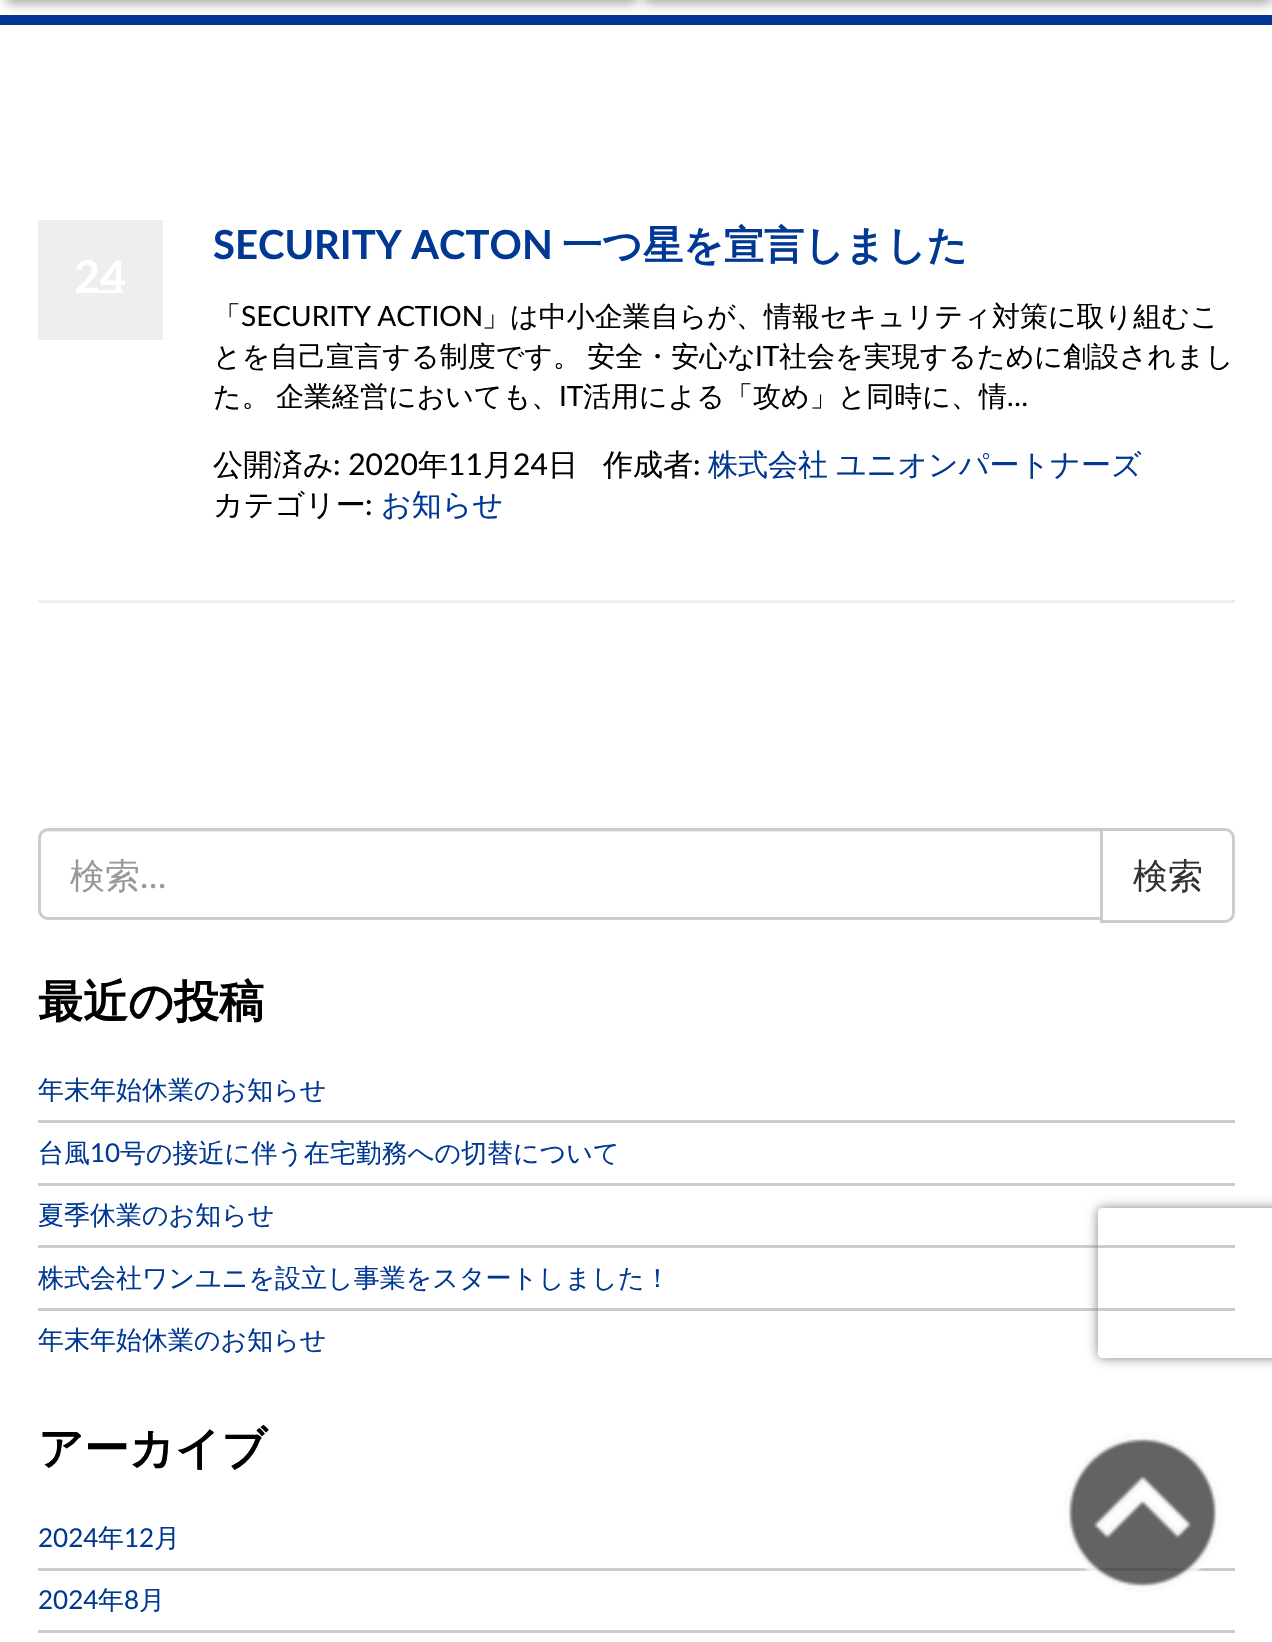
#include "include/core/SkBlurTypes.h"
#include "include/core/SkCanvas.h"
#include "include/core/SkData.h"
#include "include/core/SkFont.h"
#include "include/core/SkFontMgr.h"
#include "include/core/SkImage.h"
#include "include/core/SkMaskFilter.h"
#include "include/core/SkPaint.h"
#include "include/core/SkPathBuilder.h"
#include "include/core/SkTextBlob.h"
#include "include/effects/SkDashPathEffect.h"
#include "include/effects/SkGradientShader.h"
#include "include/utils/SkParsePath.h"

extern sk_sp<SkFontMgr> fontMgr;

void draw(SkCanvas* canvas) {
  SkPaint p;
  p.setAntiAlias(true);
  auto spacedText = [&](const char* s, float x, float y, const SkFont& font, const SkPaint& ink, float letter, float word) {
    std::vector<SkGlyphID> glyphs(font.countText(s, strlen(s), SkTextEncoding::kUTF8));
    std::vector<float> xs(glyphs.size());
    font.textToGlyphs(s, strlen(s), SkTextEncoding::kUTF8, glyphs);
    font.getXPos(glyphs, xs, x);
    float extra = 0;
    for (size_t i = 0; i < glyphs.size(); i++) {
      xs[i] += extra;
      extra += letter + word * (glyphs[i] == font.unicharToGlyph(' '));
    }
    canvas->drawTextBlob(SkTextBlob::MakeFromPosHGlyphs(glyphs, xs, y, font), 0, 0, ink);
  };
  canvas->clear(SK_ColorWHITE);
  p.setColor(SkColorSetRGB(0, 56, 147));
  canvas->drawRect(SkRect::MakeLTRB(0, 15, 1272, 25), p);
  p.setColor(SkColorSetARGB(59, 0, 0, 0));
  p.setMaskFilter(SkMaskFilter::MakeBlur(kNormal_SkBlurStyle, 6));
  canvas->drawRoundRect(SkRect::MakeLTRB(5, -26, 638, 3), 8, 8, p);
  p.setMaskFilter(nullptr);
  p.setColor(SkColorSetARGB(41, 0, 0, 0));
  p.setMaskFilter(SkMaskFilter::MakeBlur(kNormal_SkBlurStyle, 6));
  canvas->drawRoundRect(SkRect::MakeLTRB(5, -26, 638, 3), 8, 8, p);
  p.setMaskFilter(nullptr);
  p.setColor(SkColorSetARGB(59, 0, 0, 0));
  p.setMaskFilter(SkMaskFilter::MakeBlur(kNormal_SkBlurStyle, 6));
  canvas->drawRoundRect(SkRect::MakeLTRB(643, -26, 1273, 3), 8, 8, p);
  p.setMaskFilter(nullptr);
  p.setColor(SkColorSetARGB(41, 0, 0, 0));
  p.setMaskFilter(SkMaskFilter::MakeBlur(kNormal_SkBlurStyle, 6));
  canvas->drawRoundRect(SkRect::MakeLTRB(643, -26, 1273, 3), 8, 8, p);
  p.setMaskFilter(nullptr);
  p.setColor(SkColorSetRGB(238, 238, 238));
  canvas->drawRect(SkRect::MakeLTRB(38, 600, 1235, 603), p);
  canvas->drawRect(SkRect::MakeLTRB(38, 220, 163, 340), p);
  p.setColor(SK_ColorWHITE);
  canvas->drawRect(SkRect::MakeLTRB(98, 290, 123, 293), p);
  p.setStyle(SkPaint::kStroke_Style);
  p.setStrokeWidth(3);
  p.setColor(SkColorSetRGB(204, 204, 204));
  canvas->drawPath(SkPathBuilder().moveTo(1101.5f, 829.5f).lineTo(1225, 829.5f).cubicTo(1229.5f, 829.5f, 1233.5f, 833.5f, 1233.5f, 838).lineTo(1233.5f, 913).cubicTo(1233.5f, 917.5f, 1229.5f, 921.5f, 1225, 921.5f).lineTo(1101.5f, 921.5f).close().detach(), p);
  p.setStyle(SkPaint::kFill_Style);
  p.setColor(SK_ColorWHITE);
  canvas->drawPath(SkPathBuilder().moveTo(48, 828).lineTo(1103, 828).lineTo(1103, 920).lineTo(48, 920).cubicTo(42.5f, 920, 38, 915.5f, 38, 910).lineTo(38, 838).cubicTo(38, 832.5f, 42.5f, 828, 48, 828).close().detach(), p);
  p.setColor(SkColorSetRGB(236, 236, 236));
  canvas->drawPath(SkPathBuilder().moveTo(48, 832).lineTo(1100, 832).lineTo(1100, 830).lineTo(48, 830).cubicTo(42, 830, 40, 835, 40, 840).cubicTo(40, 836, 43, 832, 48, 832).close().detach(), p);
  p.setStyle(SkPaint::kStroke_Style);
  p.setColor(SkColorSetRGB(204, 204, 204));
  canvas->drawPath(SkPathBuilder().moveTo(48, 829.5f).lineTo(1101.5f, 829.5f).lineTo(1101.5f, 918.5f).lineTo(48, 918.5f).cubicTo(43.5f, 918.5f, 39.5f, 914.5f, 39.5f, 910).lineTo(39.5f, 838).cubicTo(39.5f, 833.5f, 43.5f, 829.5f, 48, 829.5f).close().detach(), p);
  p.setStyle(SkPaint::kFill_Style);
  canvas->drawRect(SkRect::MakeLTRB(38, 1120, 1235, 1123), p);
  canvas->drawRect(SkRect::MakeLTRB(38, 1183, 1235, 1186), p);
  canvas->drawRect(SkRect::MakeLTRB(38, 1245, 1235, 1248), p);
  canvas->drawRect(SkRect::MakeLTRB(38, 1308, 1235, 1311), p);
  canvas->drawRect(SkRect::MakeLTRB(38, 1568, 1235, 1571), p);
  canvas->drawRect(SkRect::MakeLTRB(38, 1630, 1235, 1633), p);
  canvas->save();
  canvas->clipPath(SkPathBuilder(SkPathFillType::kEvenOdd).moveTo(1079, 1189).lineTo(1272, 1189).lineTo(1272, 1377).lineTo(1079, 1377).close().moveTo(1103, 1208).lineTo(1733, 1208).cubicTo(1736, 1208, 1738, 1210, 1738, 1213).lineTo(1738, 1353).cubicTo(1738, 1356, 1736, 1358, 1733, 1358).lineTo(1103, 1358).cubicTo(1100, 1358, 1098, 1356, 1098, 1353).lineTo(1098, 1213).cubicTo(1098, 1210, 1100, 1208, 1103, 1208).close().detach(), true);
  p.setColor(SkColorSetRGB(128, 128, 128));
  p.setMaskFilter(SkMaskFilter::MakeBlur(kNormal_SkBlurStyle, 6));
  canvas->drawRoundRect(SkRect::MakeLTRB(1098, 1208, 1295, 1358), 5, 5, p);
  p.setMaskFilter(nullptr);
  canvas->restore();
  canvas->drawImageRect(SkImages::DeferredFromEncodedData(SkData::MakeFromFileName("images/1.png")), SkRect::MakeLTRB(1063, 1433, 1222, 1592), SkSamplingOptions());
  SkFont font1(fontMgr->matchFamilyStyle("Lato", SkFontStyle::Bold()), 45);
  font1.setSubpixel(true);
  p.setColor(SK_ColorWHITE);
  canvas->drawString("24", 74, 293, font1, p);
  SkFont font2(fontMgr->matchFamilyStyle("Lato", SkFontStyle::Bold()), 40);
  font2.setSubpixel(true);
  p.setColor(SkColorSetRGB(0, 56, 147));
  canvas->drawString("SECURITY ACTON", 213, 259, font2, p);
  SkFont font3(fontMgr->matchFamilyStyle("WenQuanYi Zen Hei", SkFontStyle::Bold()), 40);
  font3.setSubpixel(true);
  canvas->drawString("一つ星を宣言しました", 562, 259, font3, p);
  SkFont font4(fontMgr->matchFamilyStyle("WenQuanYi Zen Hei", SkFontStyle(500, SkFontStyle::kNormal_Width, SkFontStyle::kUpright_Slant)), 28);
  font4.setSubpixel(true);
  p.setColor(SK_ColorBLACK);
  canvas->drawString("「", 213, 326, font4, p);
  SkFont font5(fontMgr->matchFamilyStyle("Lato", SkFontStyle::Normal()), 28);
  font5.setSubpixel(true);
  spacedText("SECURITY ACTION", 241, 326, font5, p, 0, -1);
  canvas->drawString("」は中小企業自らが、情報セキュリティ対策に取り組むこ", 482, 326, font4, p);
  spacedText("とを自己宣言する制度です。 安全・安心な", 213, 366, font4, p, 0, -2);
  canvas->drawString("IT", 755, 366, font5, p);
  canvas->drawString("社会を実現するために創設されまし", 779, 366, font4, p);
  spacedText("た。 企業経営においても、", 213, 406, font4, p, 0, -2);
  canvas->drawString("IT", 559, 406, font5, p);
  canvas->drawString("活用による「攻め」と同時に、情", 583, 406, font4, p);
  canvas->drawString("…", 1007, 406, font5, p);
  SkFont font6(fontMgr->matchFamilyStyle("WenQuanYi Zen Hei", SkFontStyle(500, SkFontStyle::kNormal_Width, SkFontStyle::kUpright_Slant)), 30);
  font6.setSubpixel(true);
  canvas->drawString("公開済み", 213, 475, font6, p);
  SkFont font7(fontMgr->matchFamilyStyle("Lato", SkFontStyle::Normal()), 30);
  font7.setSubpixel(true);
  canvas->drawString(": 2020", 333, 475, font7, p);
  canvas->drawString("年", 418, 475, font6, p);
  canvas->drawString("11", 448, 475, font7, p);
  canvas->drawString("月", 483, 475, font6, p);
  canvas->drawString("24", 513, 475, font7, p);
  canvas->drawString("日", 548, 475, font6, p);
  canvas->drawString("作成者", 603, 475, font6, p);
  canvas->drawString(":", 693, 475, font7, p);
  p.setColor(SkColorSetRGB(0, 56, 147));
  spacedText("株式会社 ユニオンパートナーズ", 708, 475, font6, p, 0, -1);
  p.setColor(SK_ColorBLACK);
  canvas->drawString("カテゴリー", 213, 515, font6, p);
  canvas->drawString(":", 365, 515, font7, p);
  p.setColor(SkColorSetRGB(0, 56, 147));
  canvas->drawString("お知らせ", 381, 515, font6, p);
  SkFont font8(fontMgr->matchFamilyStyle("WenQuanYi Zen Hei", SkFontStyle(500, SkFontStyle::kNormal_Width, SkFontStyle::kUpright_Slant)), 35);
  font8.setSubpixel(true);
  p.setColor(SkColorSetRGB(153, 153, 153));
  canvas->drawString("検索", 70, 888, font8, p);
  SkFont font9(fontMgr->matchFamilyStyle("Lato", SkFontStyle::Normal()), 35);
  font9.setSubpixel(true);
  canvas->drawString("…", 140, 888, font9, p);
  p.setColor(SkColorSetRGB(51, 51, 51));
  canvas->drawString("検索", 1133, 888, font8, p);
  SkFont font10(fontMgr->matchFamilyStyle("WenQuanYi Zen Hei", SkFontStyle::Bold()), 45);
  font10.setSubpixel(true);
  p.setColor(SK_ColorBLACK);
  canvas->drawString("最近の投稿", 38, 1017, font10, p);
  SkFont font11(fontMgr->matchFamilyStyle("WenQuanYi Zen Hei", SkFontStyle(500, SkFontStyle::kNormal_Width, SkFontStyle::kUpright_Slant)), 26);
  font11.setSubpixel(true);
  p.setColor(SkColorSetRGB(0, 56, 147));
  canvas->drawString("年末年始休業のお知らせ", 38, 1099, font11, p);
  canvas->drawString("台風", 38, 1162, font11, p);
  SkFont font12(fontMgr->matchFamilyStyle("Lato", SkFontStyle::Normal()), 26);
  font12.setSubpixel(true);
  canvas->drawString("10", 90, 1162, font12, p);
  canvas->drawString("号の接近に伴う在宅勤務への切替について", 120, 1162, font11, p);
  canvas->drawString("夏季休業のお知らせ", 38, 1224, font11, p);
  canvas->drawString("株式会社ワンユニを設立し事業をスタートしました！", 38, 1287, font11, p);
  canvas->drawString("年末年始休業のお知らせ", 38, 1349, font11, p);
  p.setColor(SK_ColorBLACK);
  canvas->drawString("アーカイブ", 38, 1464, font10, p);
  p.setColor(SkColorSetRGB(0, 56, 147));
  canvas->drawString("2024", 38, 1547, font12, p);
  canvas->drawString("年", 98, 1547, font11, p);
  canvas->drawString("12", 124, 1547, font12, p);
  canvas->drawString("月", 154, 1547, font11, p);
  canvas->drawString("2024", 38, 1609, font12, p);
  canvas->drawString("年", 98, 1609, font11, p);
  canvas->drawString("8", 124, 1609, font12, p);
  canvas->drawString("月", 139, 1609, font11, p);
}
